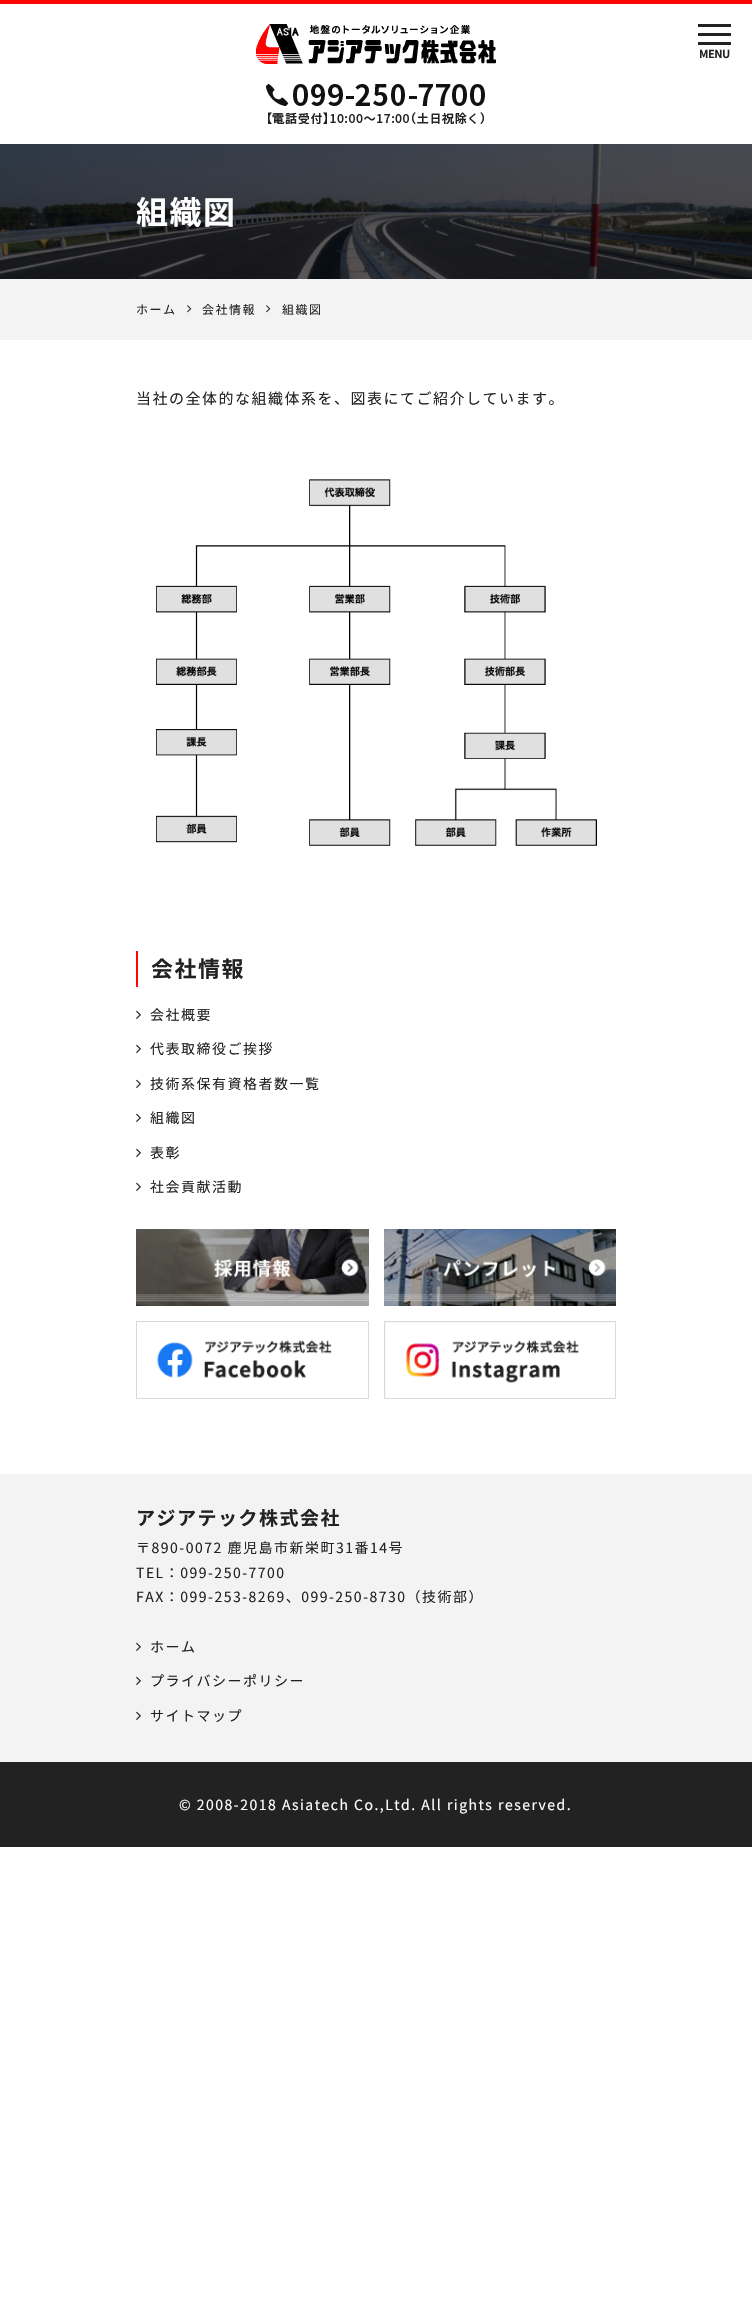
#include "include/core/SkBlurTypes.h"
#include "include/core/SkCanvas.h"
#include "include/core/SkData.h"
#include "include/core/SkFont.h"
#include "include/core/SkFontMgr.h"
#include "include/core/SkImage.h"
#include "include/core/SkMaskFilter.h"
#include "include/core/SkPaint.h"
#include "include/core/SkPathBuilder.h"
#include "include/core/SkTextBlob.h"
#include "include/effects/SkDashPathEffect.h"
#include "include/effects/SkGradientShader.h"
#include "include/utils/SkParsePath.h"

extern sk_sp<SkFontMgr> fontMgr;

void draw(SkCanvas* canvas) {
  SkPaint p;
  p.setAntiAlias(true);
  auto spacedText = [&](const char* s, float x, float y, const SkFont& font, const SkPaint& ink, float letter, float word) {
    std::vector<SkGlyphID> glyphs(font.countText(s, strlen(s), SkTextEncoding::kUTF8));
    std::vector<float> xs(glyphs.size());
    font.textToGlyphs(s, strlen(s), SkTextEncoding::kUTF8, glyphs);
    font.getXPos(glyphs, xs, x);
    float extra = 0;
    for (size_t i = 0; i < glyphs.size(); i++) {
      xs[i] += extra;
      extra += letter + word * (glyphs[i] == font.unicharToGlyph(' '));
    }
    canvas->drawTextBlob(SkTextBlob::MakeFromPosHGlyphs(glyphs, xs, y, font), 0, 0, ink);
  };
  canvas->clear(SK_ColorWHITE);
  p.setColor(SkColorSetRGB(253, 3, 2));
  canvas->drawRect(SkRect::MakeLTRB(0, 0, 752, 4), p);
  canvas->drawImageRect(SkImages::DeferredFromEncodedData(SkData::MakeFromFileName("images/1.png")), SkRect::MakeLTRB(256, 24, 496, 64), SkSamplingOptions());
  canvas->drawImageRect(SkImages::DeferredFromEncodedData(SkData::MakeFromFileName("images/2.png")), SkRect::MakeLTRB(266, 84, 485, 124), SkSamplingOptions());
  p.setColor(SkColorSetRGB(34, 34, 34));
  canvas->drawRect(SkRect::MakeLTRB(698, 24, 731, 27), p);
  canvas->drawRect(SkRect::MakeLTRB(698, 33, 731, 36), p);
  canvas->drawRect(SkRect::MakeLTRB(698, 42, 731, 45), p);
  canvas->drawImageRect(SkImages::DeferredFromEncodedData(SkData::MakeFromFileName("images/3.png")), SkRect::MakeLTRB(0, 144, 752, 279), SkSamplingOptions());
  p.setColor(SkColorSetRGB(243, 243, 243));
  canvas->drawRect(SkRect::MakeLTRB(0, 279, 752, 340), p);
  canvas->drawImageRect(SkImages::DeferredFromEncodedData(SkData::MakeFromFileName("images/4.png")), SkRect::MakeLTRB(187, 305, 192, 313), SkSamplingOptions());
  canvas->drawImageRect(SkImages::DeferredFromEncodedData(SkData::MakeFromFileName("images/4.png")), SkRect::MakeLTRB(266, 305, 271, 313), SkSamplingOptions());
  canvas->drawImageRect(SkImages::DeferredFromEncodedData(SkData::MakeFromFileName("images/5.png")), SkRect::MakeLTRB(156, 479, 597, 846), SkSamplingOptions());
  p.setColor(SkColorSetRGB(253, 3, 2));
  canvas->drawRect(SkRect::MakeLTRB(136, 951, 138, 987), p);
  canvas->drawImageRect(SkImages::DeferredFromEncodedData(SkData::MakeFromFileName("images/6.png")), SkRect::MakeLTRB(136, 1010, 141, 1019), SkSamplingOptions());
  canvas->drawImageRect(SkImages::DeferredFromEncodedData(SkData::MakeFromFileName("images/6.png")), SkRect::MakeLTRB(136, 1044, 141, 1053), SkSamplingOptions());
  canvas->drawImageRect(SkImages::DeferredFromEncodedData(SkData::MakeFromFileName("images/6.png")), SkRect::MakeLTRB(136, 1079, 141, 1088), SkSamplingOptions());
  canvas->drawImageRect(SkImages::DeferredFromEncodedData(SkData::MakeFromFileName("images/6.png")), SkRect::MakeLTRB(136, 1113, 141, 1122), SkSamplingOptions());
  canvas->drawImageRect(SkImages::DeferredFromEncodedData(SkData::MakeFromFileName("images/6.png")), SkRect::MakeLTRB(136, 1148, 141, 1157), SkSamplingOptions());
  canvas->drawImageRect(SkImages::DeferredFromEncodedData(SkData::MakeFromFileName("images/6.png")), SkRect::MakeLTRB(136, 1182, 141, 1191), SkSamplingOptions());
  canvas->drawImageRect(SkImages::DeferredFromEncodedData(SkData::MakeFromFileName("images/7.png")), SkRect::MakeLTRB(136, 1229, 369, 1306), SkSamplingOptions());
  canvas->drawImageRect(SkImages::DeferredFromEncodedData(SkData::MakeFromFileName("images/8.png")), SkRect::MakeLTRB(384, 1229, 616, 1306), SkSamplingOptions());
  canvas->drawImageRect(SkImages::DeferredFromEncodedData(SkData::MakeFromFileName("images/9.png")), SkRect::MakeLTRB(136, 1321, 369, 1399), SkSamplingOptions());
  canvas->drawImageRect(SkImages::DeferredFromEncodedData(SkData::MakeFromFileName("images/10.png")), SkRect::MakeLTRB(384, 1321, 616, 1399), SkSamplingOptions());
  p.setColor(SkColorSetRGB(243, 243, 243));
  canvas->drawRect(SkRect::MakeLTRB(0, 1474, 752, 1762), p);
  canvas->drawImageRect(SkImages::DeferredFromEncodedData(SkData::MakeFromFileName("images/11.png")), SkRect::MakeLTRB(136, 1642, 141, 1651), SkSamplingOptions());
  canvas->drawImageRect(SkImages::DeferredFromEncodedData(SkData::MakeFromFileName("images/11.png")), SkRect::MakeLTRB(136, 1676, 141, 1685), SkSamplingOptions());
  canvas->drawImageRect(SkImages::DeferredFromEncodedData(SkData::MakeFromFileName("images/11.png")), SkRect::MakeLTRB(136, 1711, 141, 1720), SkSamplingOptions());
  p.setColor(SkColorSetRGB(34, 34, 34));
  canvas->drawRect(SkRect::MakeLTRB(0, 1762, 752, 1847), p);
  SkFont font1(fontMgr->matchFamilyStyle("Noto Sans CJK JP", SkFontStyle::Bold()), 11);
  font1.setSubpixel(true);
  spacedText("MENU", 699, 58, font1, p, -0.5f, 0);
  SkFont font2(fontMgr->matchFamilyStyle("Noto Sans CJK JP", SkFontStyle::Bold()), 32);
  font2.setSubpixel(true);
  p.setColor(SK_ColorWHITE);
  spacedText("組織図", 136, 224, font2, p, 1.5f, 0);
  SkFont font3(fontMgr->matchFamilyStyle("Noto Sans CJK JP", SkFontStyle::Normal()), 12);
  font3.setSubpixel(true);
  p.setColor(SkColorSetRGB(34, 34, 34));
  spacedText("ホーム", 136, 314, font3, p, 1.5f, 0);
  spacedText("会社情報", 202, 314, font3, p, 1.5f, 0);
  spacedText("組織図", 282, 314, font3, p, 1.5f, 0);
  SkFont font4(fontMgr->matchFamilyStyle("Noto Sans CJK JP", SkFontStyle::Normal()), 15);
  font4.setSubpixel(true);
  spacedText("当社の全体的な組織体系を、図表にてご紹介しています。", 136, 404, font4, p, 1.5f, 0);
  SkFont font5(fontMgr->matchFamilyStyle("Noto Sans CJK JP", SkFontStyle::Bold()), 22);
  font5.setSubpixel(true);
  spacedText("会社情報", 151, 977, font5, p, 1.5f, 0);
  SkFont font6(fontMgr->matchFamilyStyle("Noto Sans CJK JP", SkFontStyle::Normal()), 14);
  font6.setSubpixel(true);
  spacedText("会社概要", 150, 1020, font6, p, 1.5f, 0);
  spacedText("代表取締役ご挨拶", 150, 1054, font6, p, 1.5f, 0);
  spacedText("技術系保有資格者数一覧", 150, 1089, font6, p, 1.5f, 0);
  spacedText("組織図", 150, 1123, font6, p, 1.5f, 0);
  spacedText("表彰", 150, 1158, font6, p, 1.5f, 0);
  spacedText("社会貢献活動", 150, 1192, font6, p, 1.5f, 0);
  SkFont font7(fontMgr->matchFamilyStyle("Noto Sans CJK JP", SkFontStyle::Bold()), 19);
  font7.setSubpixel(true);
  spacedText("アジアテック株式会社", 136, 1525, font7, p, 1.5f, 0);
  spacedText("〒890-0072 鹿児島市新栄町31番14号", 136, 1553, font6, p, 1.5f, 0);
  spacedText("TEL：099-250-7700", 136, 1578, font6, p, 1.5f, 0);
  spacedText("FAX：099-253-8269、099-250-8730（技術部）", 136, 1602, font6, p, 1.5f, 0);
  spacedText("ホーム", 150, 1652, font6, p, 1.5f, 0);
  spacedText("プライバシーポリシー", 150, 1686, font6, p, 1.5f, 0);
  spacedText("サイトマップ", 150, 1721, font6, p, 1.5f, 0);
  p.setColor(SK_ColorWHITE);
  spacedText("© 2008-2018 Asiatech Co.,Ltd. All rights reserved.", 179, 1810, font6, p, 1.5f, 0);
}
